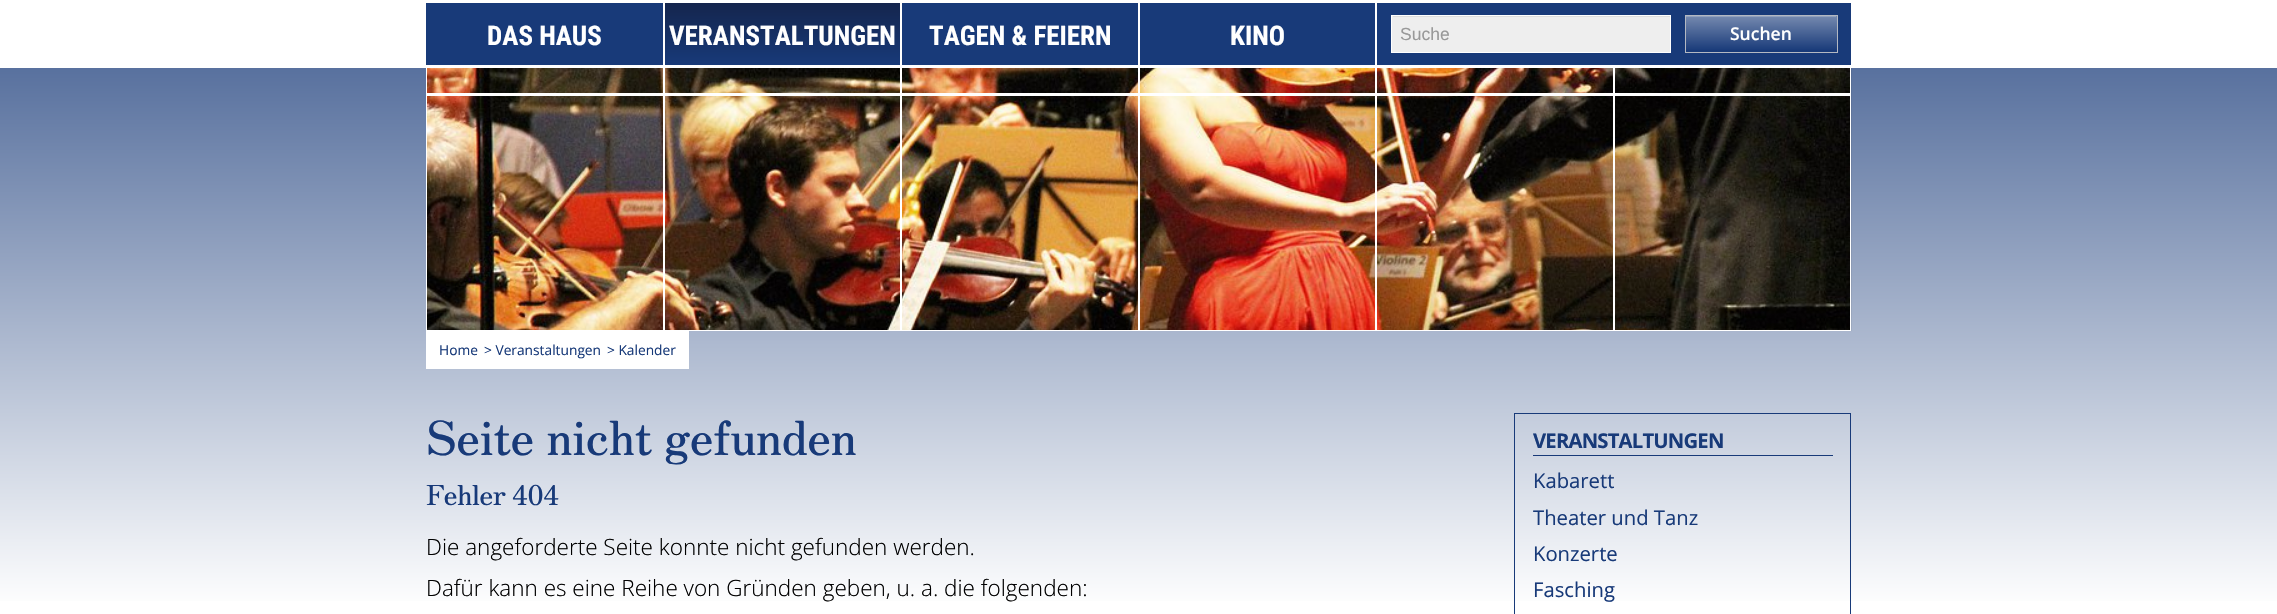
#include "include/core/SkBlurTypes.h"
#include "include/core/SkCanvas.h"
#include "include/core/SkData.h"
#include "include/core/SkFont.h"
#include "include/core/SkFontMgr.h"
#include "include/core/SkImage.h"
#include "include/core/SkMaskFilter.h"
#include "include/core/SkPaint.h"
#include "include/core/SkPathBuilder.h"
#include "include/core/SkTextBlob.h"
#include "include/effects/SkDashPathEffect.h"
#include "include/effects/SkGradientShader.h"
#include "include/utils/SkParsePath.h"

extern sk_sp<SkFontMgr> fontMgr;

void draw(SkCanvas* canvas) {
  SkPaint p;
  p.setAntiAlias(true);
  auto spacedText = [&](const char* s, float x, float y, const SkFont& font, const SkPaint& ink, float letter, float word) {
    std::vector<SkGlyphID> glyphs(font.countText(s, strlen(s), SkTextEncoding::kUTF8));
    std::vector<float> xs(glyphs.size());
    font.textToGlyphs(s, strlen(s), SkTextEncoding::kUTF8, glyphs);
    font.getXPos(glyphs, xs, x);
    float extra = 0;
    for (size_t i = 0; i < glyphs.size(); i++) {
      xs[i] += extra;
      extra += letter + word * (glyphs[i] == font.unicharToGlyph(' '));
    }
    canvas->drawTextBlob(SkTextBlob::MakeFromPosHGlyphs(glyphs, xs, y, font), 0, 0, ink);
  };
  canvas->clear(SK_ColorWHITE);
  p.setColor(SkColorSetRGB(24, 58, 121));
  canvas->drawRect(SkRect::MakeLTRB(426, 3, 663, 65), p);
  {
    const SkColor colors[] = {SkColorSetRGB(20, 37, 77), SkColorSetRGB(24, 58, 121)};
    const float stops[] = {0, 1};
    const SkPoint ends[] = {{783, 2.5f}, {783, 65}};
    p.setShader(SkGradientShader::MakeLinear(ends, colors, stops, 2, SkTileMode::kClamp));
    p.setAlpha(255);
  }
  canvas->drawRect(SkRect::MakeLTRB(665, 3, 900, 65), p);
  p.setShader(nullptr);
  p.setColor(SkColorSetRGB(24, 58, 121));
  canvas->drawRect(SkRect::MakeLTRB(902, 3, 1138, 65), p);
  canvas->drawRect(SkRect::MakeLTRB(1140, 3, 1375, 65), p);
  canvas->drawRect(SkRect::MakeLTRB(1377, 3, 1851, 65), p);
  p.setColor(SkColorSetRGB(238, 238, 238));
  canvas->drawRect(SkRect::MakeLTRB(1392, 16, 1670, 52), p);
  p.setColor(SkColorSetRGB(220, 220, 220));
  canvas->drawRect(SkRect::MakeLTRB(1393, 16, 1670, 17), p);
  p.setStyle(SkPaint::kStroke_Style);
  p.setStrokeWidth(1);
  p.setColor(SK_ColorWHITE);
  canvas->drawRect(SkRect::MakeLTRB(1391.5f, 15.5f, 1670.5f, 52.5f), p);
  p.setStyle(SkPaint::kFill_Style);
  {
    const SkColor colors[] = {SkColorSetRGB(117, 137, 175), SkColorSetRGB(24, 58, 121)};
    const float stops[] = {0, 1};
    const SkPoint ends[] = {{1761, 16}, {1761, 51}};
    p.setShader(SkGradientShader::MakeLinear(ends, colors, stops, 2, SkTileMode::kClamp));
    p.setAlpha(255);
  }
  canvas->drawRect(SkRect::MakeLTRB(1686, 16, 1837, 50), p);
  p.setShader(nullptr);
  p.setColor(SkColorSetRGB(144, 160, 190));
  canvas->drawRect(SkRect::MakeLTRB(1686, 16, 1836, 17), p);
  p.setStyle(SkPaint::kStroke_Style);
  p.setColor(SkColorSetRGB(179, 184, 194));
  canvas->drawRect(SkRect::MakeLTRB(1685.5f, 15.5f, 1837.5f, 52.5f), p);
  p.setStyle(SkPaint::kFill_Style);
  {
    const SkColor colors[] = {SkColorSetRGB(24, 58, 121), SK_ColorWHITE};
    const float stops[] = {0, 1};
    const SkPoint ends[] = {{1139, -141}, {1139, 609}};
    p.setShader(SkGradientShader::MakeLinear(ends, colors, stops, 2, SkTileMode::kClamp));
    p.setAlpha(255);
  }
  canvas->drawRect(SkRect::MakeLTRB(0, 68, 2277, 601), p);
  canvas->drawImageRect(SkImages::DeferredFromEncodedData(SkData::MakeFromFileName("images/1.png")), SkRect::MakeLTRB(427, 68, 1852, 331), SkSamplingOptions());
  p.setShader(nullptr);
  p.setColor(SK_ColorWHITE);
  canvas->drawRect(SkRect::MakeLTRB(663, 68, 664, 95), p);
  canvas->drawRect(SkRect::MakeLTRB(426, 93, 664, 96), p);
  canvas->drawRect(SkRect::MakeLTRB(426, 68, 427, 331), p);
  canvas->drawRect(SkRect::MakeLTRB(900, 68, 901, 95), p);
  canvas->drawRect(SkRect::MakeLTRB(664, 93, 901, 96), p);
  canvas->drawRect(SkRect::MakeLTRB(664, 68, 665, 95), p);
  canvas->drawRect(SkRect::MakeLTRB(1138, 68, 1139, 95), p);
  canvas->drawRect(SkRect::MakeLTRB(901, 93, 1139, 96), p);
  canvas->drawRect(SkRect::MakeLTRB(901, 68, 902, 95), p);
  canvas->drawRect(SkRect::MakeLTRB(1375, 68, 1376, 95), p);
  canvas->drawRect(SkRect::MakeLTRB(1139, 93, 1376, 96), p);
  canvas->drawRect(SkRect::MakeLTRB(1139, 68, 1140, 95), p);
  canvas->drawRect(SkRect::MakeLTRB(1613, 68, 1614, 95), p);
  canvas->drawRect(SkRect::MakeLTRB(1376, 93, 1614, 96), p);
  canvas->drawRect(SkRect::MakeLTRB(1376, 68, 1377, 95), p);
  canvas->drawRect(SkRect::MakeLTRB(1850, 68, 1851, 95), p);
  canvas->drawRect(SkRect::MakeLTRB(1614, 93, 1851, 96), p);
  canvas->drawRect(SkRect::MakeLTRB(1614, 68, 1615, 95), p);
  canvas->drawRect(SkRect::MakeLTRB(663, 95, 665, 331), p);
  canvas->drawRect(SkRect::MakeLTRB(900, 95, 902, 331), p);
  canvas->drawRect(SkRect::MakeLTRB(1138, 95, 1140, 331), p);
  canvas->drawRect(SkRect::MakeLTRB(1375, 95, 1377, 331), p);
  canvas->drawRect(SkRect::MakeLTRB(1613, 95, 1615, 331), p);
  canvas->drawRect(SkRect::MakeLTRB(1850, 95, 1851, 331), p);
  canvas->drawRect(SkRect::MakeLTRB(426, 330, 1851, 331), p);
  canvas->drawRect(SkRect::MakeLTRB(426, 331, 689, 369), p);
  p.setStyle(SkPaint::kStroke_Style);
  p.setColor(SkColorSetRGB(24, 58, 121));
  canvas->drawRect(SkRect::MakeLTRB(1514.5f, 413.5f, 1850.5f, 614.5f), p);
  p.setStyle(SkPaint::kFill_Style);
  canvas->drawRect(SkRect::MakeLTRB(1533, 455, 1833, 456), p);
  SkFont font1(fontMgr->matchFamilyStyle("Roboto Condensed", SkFontStyle::Bold()), 27);
  font1.setSubpixel(true);
  p.setColor(SK_ColorWHITE);
  canvas->drawString("DAS HAUS", 487, 45, font1, p);
  canvas->drawString("VERANSTALTUNGEN", 669, 45, font1, p);
  canvas->drawString("TAGEN & FEIERN", 929, 45, font1, p);
  canvas->drawString("KINO", 1230, 45, font1, p);
  SkFont font2(fontMgr->matchFamilyStyle("Liberation Sans", SkFontStyle::Normal()), 17.5f);
  font2.setSubpixel(true);
  p.setColor(SkColorSetRGB(153, 153, 153));
  canvas->drawString("Suche", 1400, 40, font2, p);
  SkFont font3(fontMgr->matchFamilyStyle("Open Sans", SkFontStyle(600, SkFontStyle::kNormal_Width, SkFontStyle::kUpright_Slant)), 17.5f);
  font3.setSubpixel(true);
  p.setColor(SK_ColorWHITE);
  canvas->drawString("Suchen", 1730, 40, font3, p);
  SkFont font4(fontMgr->matchFamilyStyle("Open Sans", SkFontStyle::Normal()), 13.75f);
  font4.setSubpixel(true);
  p.setColor(SkColorSetRGB(24, 58, 121));
  canvas->drawString("Home", 439, 355, font4, p);
  canvas->drawString("> Veranstaltungen", 484, 355, font4, p);
  canvas->drawString("> Kalender", 607, 355, font4, p);
  SkFont font5(fontMgr->matchFamilyStyle("Zen Old Mincho", SkFontStyle(600, SkFontStyle::kNormal_Width, SkFontStyle::kUpright_Slant)), 47.25f);
  font5.setSubpixel(true);
  spacedText("Seite nicht gefunden", 426, 455, font5, p, -0.8f, 0);
  SkFont font6(fontMgr->matchFamilyStyle("Open Sans", SkFontStyle::Bold()), 20.25f);
  font6.setSubpixel(true);
  spacedText("VERANSTALTUNGEN", 1533, 448, font6, p, -0.8f, 0);
  SkFont font7(fontMgr->matchFamilyStyle("Open Sans", SkFontStyle::Normal()), 20.25f);
  font7.setSubpixel(true);
  canvas->drawString("Kabarett", 1533, 488, font7, p);
  canvas->drawString("Theater und Tanz", 1533, 525, font7, p);
  canvas->drawString("Konzerte", 1533, 561, font7, p);
  canvas->drawString("Fasching", 1533, 597, font7, p);
  SkFont font8(fontMgr->matchFamilyStyle("Zen Old Mincho", SkFontStyle(600, SkFontStyle::kNormal_Width, SkFontStyle::kUpright_Slant)), 27.5f);
  font8.setSubpixel(true);
  spacedText("Fehler 404", 426, 505, font8, p, -0.8f, 0);
  SkFont font9(fontMgr->matchFamilyStyle("Open Sans", SkFontStyle(300, SkFontStyle::kNormal_Width, SkFontStyle::kUpright_Slant)), 22.5f);
  font9.setSubpixel(true);
  p.setColor(SK_ColorBLACK);
  canvas->drawString("Die angeforderte Seite konnte nicht gefunden werden.", 426, 555, font9, p);
  canvas->drawString("Dafür kann es eine Reihe von Gründen geben, u. a. die folgenden:", 426, 596, font9, p);
}
